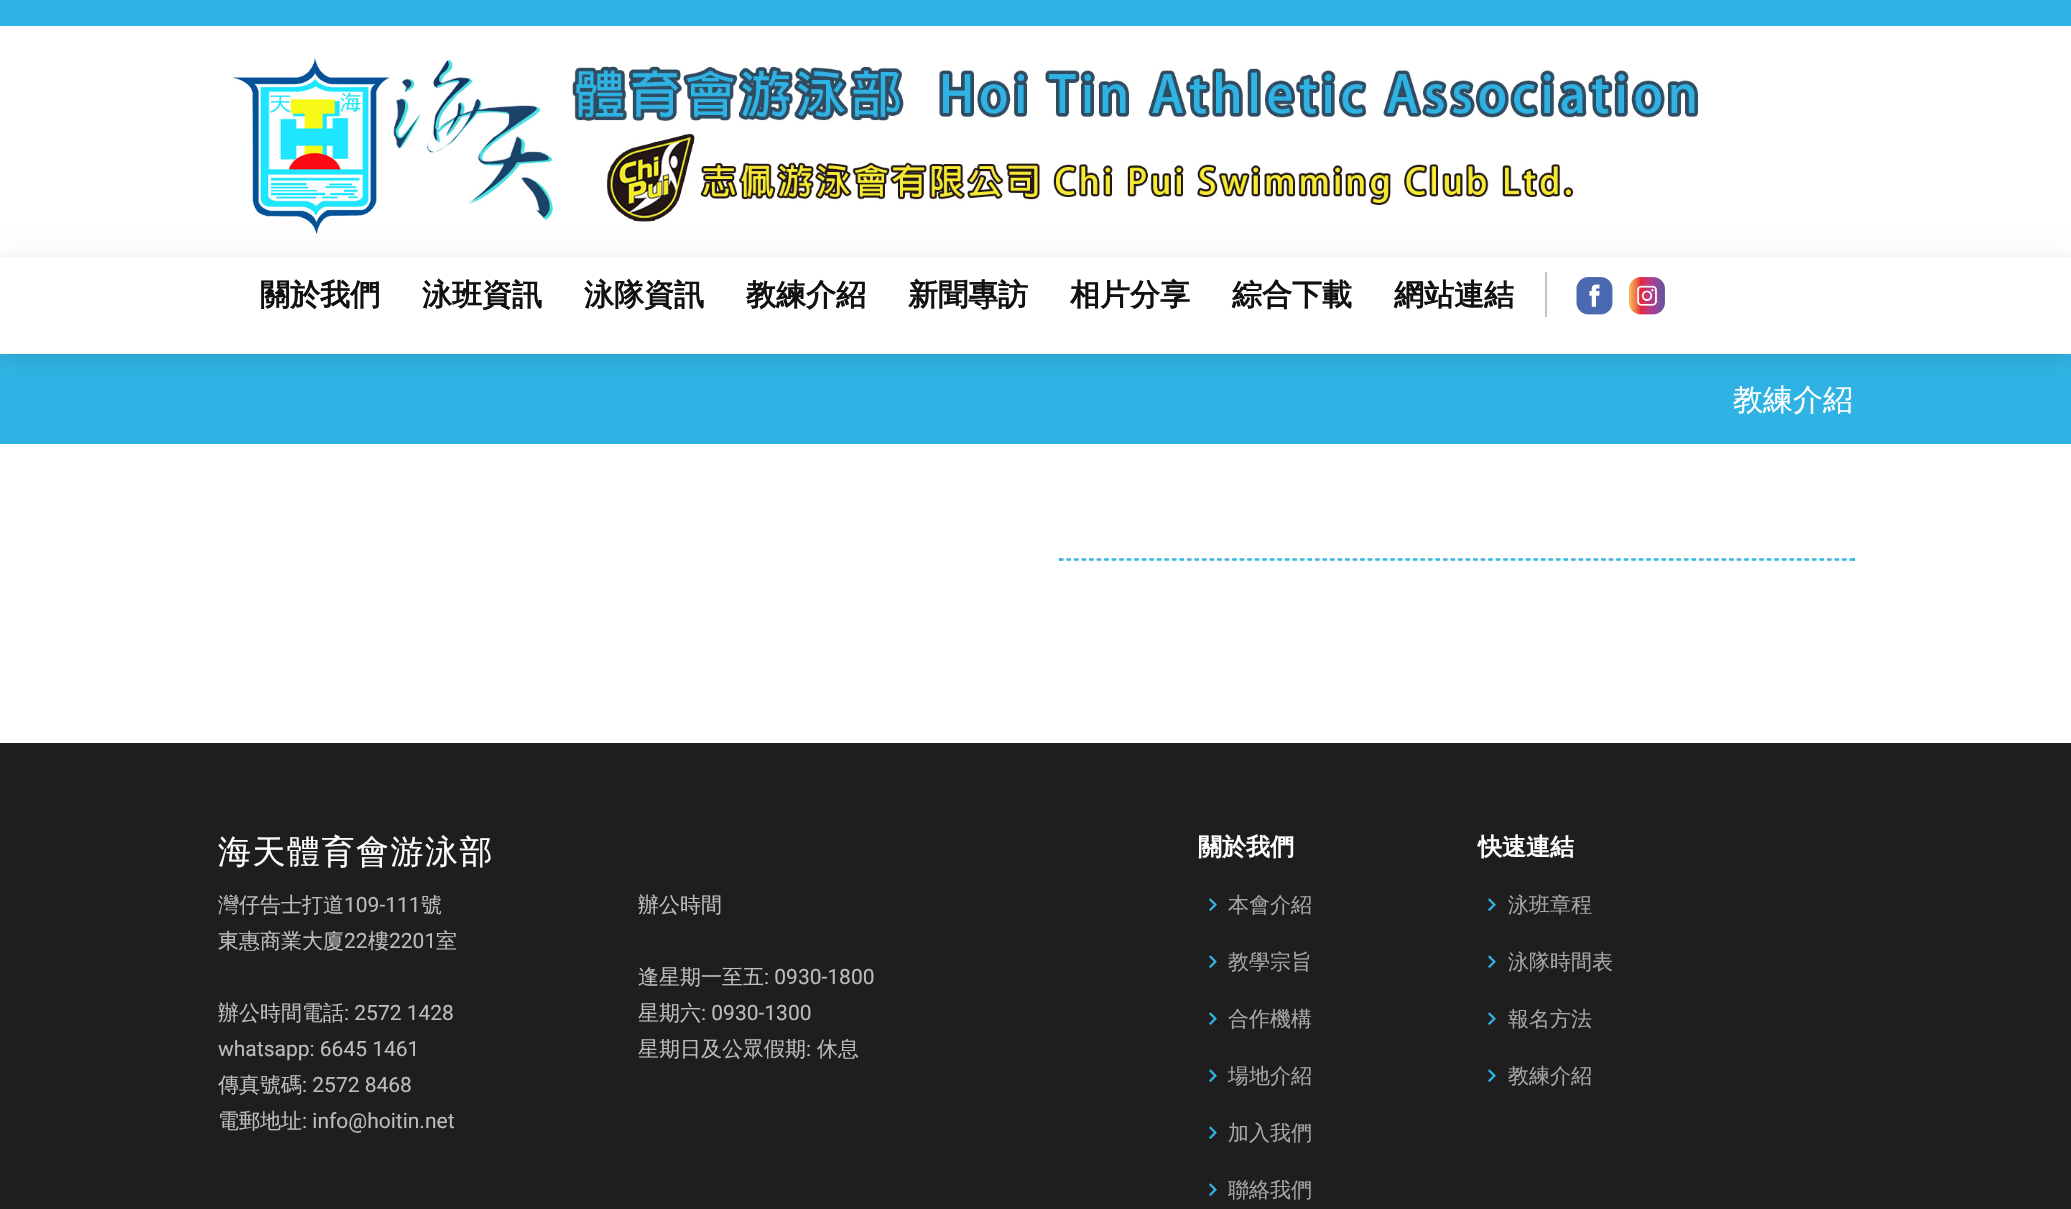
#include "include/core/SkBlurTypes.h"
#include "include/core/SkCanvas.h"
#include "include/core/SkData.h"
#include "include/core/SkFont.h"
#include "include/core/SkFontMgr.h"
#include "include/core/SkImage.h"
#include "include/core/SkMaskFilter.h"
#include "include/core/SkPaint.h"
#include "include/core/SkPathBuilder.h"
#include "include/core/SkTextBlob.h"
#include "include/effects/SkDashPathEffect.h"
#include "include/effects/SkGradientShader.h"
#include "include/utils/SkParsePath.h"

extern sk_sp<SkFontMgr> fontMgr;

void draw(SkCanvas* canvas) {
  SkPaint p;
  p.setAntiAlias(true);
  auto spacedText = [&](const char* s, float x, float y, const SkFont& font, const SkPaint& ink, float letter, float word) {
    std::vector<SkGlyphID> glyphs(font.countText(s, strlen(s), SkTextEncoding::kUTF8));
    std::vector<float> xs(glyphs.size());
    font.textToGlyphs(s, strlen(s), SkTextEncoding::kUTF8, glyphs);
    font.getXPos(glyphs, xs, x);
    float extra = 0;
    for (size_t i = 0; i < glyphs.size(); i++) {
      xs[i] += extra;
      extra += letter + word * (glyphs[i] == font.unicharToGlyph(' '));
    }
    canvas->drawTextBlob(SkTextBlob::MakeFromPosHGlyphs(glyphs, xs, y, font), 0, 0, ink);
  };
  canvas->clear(SK_ColorWHITE);
  p.setColor(SkColorSetRGB(47, 179, 228));
  canvas->drawRect(SkRect::MakeLTRB(0, 0, 2071, 26), p);
  canvas->drawImageRect(SkImages::DeferredFromEncodedData(SkData::MakeFromFileName("images/1.png")), SkRect::MakeLTRB(232, 58, 1698, 234), SkSamplingOptions());
  canvas->drawRect(SkRect::MakeLTRB(0, 354, 2071, 444), p);
  canvas->save();
  canvas->clipPath(SkPathBuilder(SkPathFillType::kEvenOdd).moveTo(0, 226).lineTo(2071, 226).lineTo(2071, 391).lineTo(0, 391).close().moveTo(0, 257).lineTo(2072, 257).lineTo(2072, 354).lineTo(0, 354).close().detach(), true);
  p.setColor(SkColorSetARGB(26, 0, 0, 0));
  p.setMaskFilter(SkMaskFilter::MakeBlur(kNormal_SkBlurStyle, 11));
  canvas->drawRect(SkRect::MakeLTRB(0, 260, 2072, 357), p);
  p.setMaskFilter(nullptr);
  canvas->restore();
  p.setColor(SkColorSetRGB(196, 196, 196));
  canvas->drawRect(SkRect::MakeLTRB(1545, 272, 1547, 317), p);
  canvas->drawImageRect(SkImages::DeferredFromEncodedData(SkData::MakeFromFileName("images/2.png")), SkRect::MakeLTRB(1576, 277, 1613, 315), SkSamplingOptions());
  canvas->drawImageRect(SkImages::DeferredFromEncodedData(SkData::MakeFromFileName("images/3.png")), SkRect::MakeLTRB(1629, 277, 1665, 315), SkSamplingOptions());
  p.setStyle(SkPaint::kStroke_Style);
  p.setStrokeWidth(1.5f);
  p.setColor(SkColorSetRGB(47, 179, 228));
  p.setPathEffect(SkDashPathEffect::Make({{4.5f, 3.03f}}, 0));
  canvas->drawPath(SkPathBuilder().moveTo(1059, 559).lineTo(1854, 559).detach(), p);
  p.setPathEffect(nullptr);
  p.setStyle(SkPaint::kFill_Style);
  canvas->drawRect(SkRect::MakeLTRB(1853, 558, 1855, 561), p);
  p.setStyle(SkPaint::kStroke_Style);
  p.setPathEffect(SkDashPathEffect::Make({{4.5f, 3.03f}}, 0));
  canvas->drawPath(SkPathBuilder().moveTo(1059, 560).lineTo(1854, 560).detach(), p);
  p.setPathEffect(nullptr);
  p.setStyle(SkPaint::kFill_Style);
  canvas->drawRect(SkRect::MakeLTRB(1059, 558, 1061, 561), p);
  p.setColor(SkColorSetRGB(30, 30, 30));
  canvas->drawRect(SkRect::MakeLTRB(0, 743, 2071, 1209), p);
  canvas->drawImageRect(SkImages::DeferredFromEncodedData(SkData::MakeFromFileName("images/4.png")), SkRect::MakeLTRB(1209, 898, 1217, 911), SkSamplingOptions());
  canvas->drawImageRect(SkImages::DeferredFromEncodedData(SkData::MakeFromFileName("images/4.png")), SkRect::MakeLTRB(1209, 955, 1217, 968), SkSamplingOptions());
  canvas->drawImageRect(SkImages::DeferredFromEncodedData(SkData::MakeFromFileName("images/4.png")), SkRect::MakeLTRB(1209, 1012, 1217, 1025), SkSamplingOptions());
  canvas->drawImageRect(SkImages::DeferredFromEncodedData(SkData::MakeFromFileName("images/4.png")), SkRect::MakeLTRB(1209, 1069, 1217, 1082), SkSamplingOptions());
  canvas->drawImageRect(SkImages::DeferredFromEncodedData(SkData::MakeFromFileName("images/4.png")), SkRect::MakeLTRB(1209, 1126, 1217, 1139), SkSamplingOptions());
  canvas->drawImageRect(SkImages::DeferredFromEncodedData(SkData::MakeFromFileName("images/4.png")), SkRect::MakeLTRB(1209, 1183, 1217, 1196), SkSamplingOptions());
  canvas->drawImageRect(SkImages::DeferredFromEncodedData(SkData::MakeFromFileName("images/4.png")), SkRect::MakeLTRB(1488, 898, 1496, 911), SkSamplingOptions());
  canvas->drawImageRect(SkImages::DeferredFromEncodedData(SkData::MakeFromFileName("images/4.png")), SkRect::MakeLTRB(1488, 955, 1496, 968), SkSamplingOptions());
  canvas->drawImageRect(SkImages::DeferredFromEncodedData(SkData::MakeFromFileName("images/4.png")), SkRect::MakeLTRB(1488, 1012, 1496, 1025), SkSamplingOptions());
  canvas->drawImageRect(SkImages::DeferredFromEncodedData(SkData::MakeFromFileName("images/4.png")), SkRect::MakeLTRB(1488, 1069, 1496, 1082), SkSamplingOptions());
  SkFont font1(fontMgr->matchFamilyStyle("WenQuanYi Zen Hei", SkFontStyle::Bold()), 30);
  font1.setSubpixel(true);
  p.setColor(SkColorSetRGB(17, 17, 17));
  canvas->drawString("關於我們", 260, 305, font1, p);
  canvas->drawString("泳班資訊", 422, 305, font1, p);
  canvas->drawString("泳隊資訊", 584, 305, font1, p);
  canvas->drawString("教練介紹", 746, 305, font1, p);
  canvas->drawString("新聞專訪", 908, 305, font1, p);
  canvas->drawString("相片分享", 1070, 305, font1, p);
  canvas->drawString("綜合下載", 1232, 305, font1, p);
  canvas->drawString("網站連結", 1394, 305, font1, p);
  SkFont font2(fontMgr->matchFamilyStyle("WenQuanYi Zen Hei", SkFontStyle(500, SkFontStyle::kNormal_Width, SkFontStyle::kUpright_Slant)), 30);
  font2.setSubpixel(true);
  p.setColor(SK_ColorWHITE);
  canvas->drawString("教練介紹", 1733, 410, font2, p);
  SkFont font3(fontMgr->matchFamilyStyle("WenQuanYi Zen Hei", SkFontStyle(500, SkFontStyle::kNormal_Width, SkFontStyle::kUpright_Slant)), 33);
  font3.setSubpixel(true);
  spacedText("海天體育會游泳部", 218, 863, font3, p, 1.5f, 0);
  SkFont font4(fontMgr->matchFamilyStyle("WenQuanYi Zen Hei", SkFontStyle(500, SkFontStyle::kNormal_Width, SkFontStyle::kUpright_Slant)), 21);
  font4.setSubpixel(true);
  p.setColor(SkColorSetRGB(188, 188, 188));
  canvas->drawString("灣仔告士打道", 218, 912, font4, p);
  SkFont font5(fontMgr->matchFamilyStyle("Roboto", SkFontStyle::Normal()), 21);
  font5.setSubpixel(true);
  canvas->drawString("109-111", 344, 912, font5, p);
  canvas->drawString("號", 421, 912, font4, p);
  canvas->drawString("東惠商業大廈", 218, 948, font4, p);
  canvas->drawString("22", 344, 948, font5, p);
  canvas->drawString("樓", 368, 948, font4, p);
  canvas->drawString("2201", 389, 948, font5, p);
  canvas->drawString("室", 436, 948, font4, p);
  canvas->drawString("辦公時間電話", 218, 1020, font4, p);
  canvas->drawString(": 2572 1428", 344, 1020, font5, p);
  canvas->drawString("whatsapp: 6645 1461", 218, 1056, font5, p);
  canvas->drawString("傳真號碼", 218, 1092, font4, p);
  canvas->drawString(": 2572 8468", 302, 1092, font5, p);
  canvas->drawString("電郵地址", 218, 1128, font4, p);
  canvas->drawString(": info@hoitin.net", 302, 1128, font5, p);
  canvas->drawString("辦公時間", 638, 912, font4, p);
  canvas->drawString("逢星期一至五", 638, 984, font4, p);
  canvas->drawString(": 0930-1800", 764, 984, font5, p);
  canvas->drawString("星期六", 638, 1020, font4, p);
  canvas->drawString(": 0930-1300", 701, 1020, font5, p);
  canvas->drawString("星期日及公眾假期", 638, 1056, font4, p);
  canvas->drawString(":", 806, 1056, font5, p);
  canvas->drawString("休息", 817, 1056, font4, p);
  SkFont font6(fontMgr->matchFamilyStyle("WenQuanYi Zen Hei", SkFontStyle::Bold()), 24);
  font6.setSubpixel(true);
  p.setColor(SK_ColorWHITE);
  canvas->drawString("關於我們", 1198, 855, font6, p);
  p.setColor(SkColorSetRGB(165, 165, 165));
  canvas->drawString("本會介紹", 1228, 912, font4, p);
  canvas->drawString("教學宗旨", 1228, 969, font4, p);
  canvas->drawString("合作機構", 1228, 1026, font4, p);
  canvas->drawString("場地介紹", 1228, 1083, font4, p);
  canvas->drawString("加入我們", 1228, 1140, font4, p);
  canvas->drawString("聯絡我們", 1228, 1197, font4, p);
  p.setColor(SK_ColorWHITE);
  canvas->drawString("快速連結", 1478, 855, font6, p);
  p.setColor(SkColorSetRGB(165, 165, 165));
  canvas->drawString("泳班章程", 1508, 912, font4, p);
  canvas->drawString("泳隊時間表", 1508, 969, font4, p);
  canvas->drawString("報名方法", 1508, 1026, font4, p);
  canvas->drawString("教練介紹", 1508, 1083, font4, p);
}
